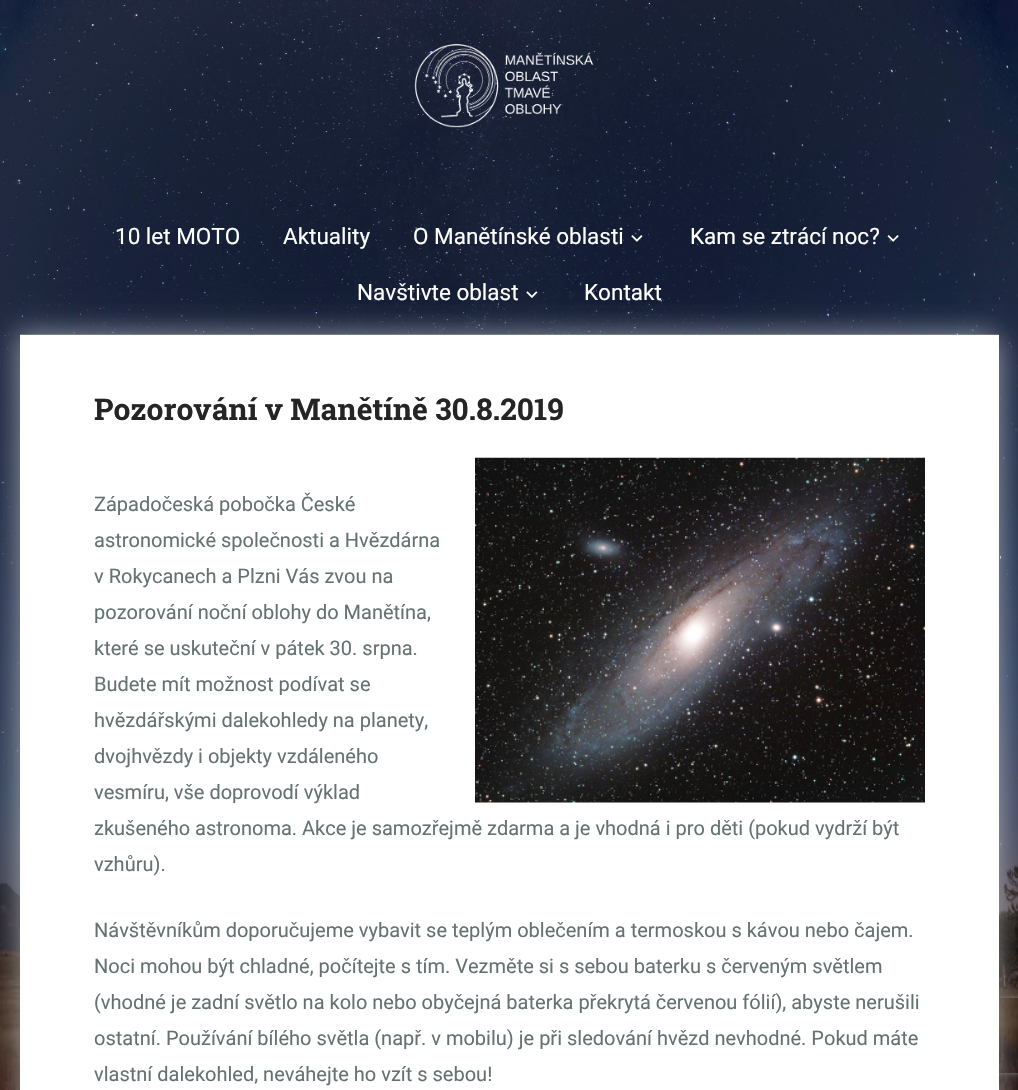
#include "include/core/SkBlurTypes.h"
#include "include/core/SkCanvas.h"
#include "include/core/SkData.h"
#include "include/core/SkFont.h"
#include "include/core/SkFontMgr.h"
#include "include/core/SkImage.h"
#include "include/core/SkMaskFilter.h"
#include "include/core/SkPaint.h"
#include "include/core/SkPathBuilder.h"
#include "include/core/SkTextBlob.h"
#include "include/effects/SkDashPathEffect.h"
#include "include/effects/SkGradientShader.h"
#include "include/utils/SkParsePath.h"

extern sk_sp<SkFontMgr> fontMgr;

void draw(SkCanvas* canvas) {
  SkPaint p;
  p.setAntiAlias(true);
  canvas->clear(SK_ColorWHITE);
  canvas->drawImageRect(SkImages::DeferredFromEncodedData(SkData::MakeFromFileName("images/1.png")), SkRect::MakeLTRB(0, 0, 1018, 1090), SkSamplingOptions());
  canvas->drawImageRect(SkImages::DeferredFromEncodedData(SkData::MakeFromFileName("images/2.png")), SkRect::MakeLTRB(414, 44, 594, 128), SkSamplingOptions());
  p.setColor(SkColorSetARGB(51, 255, 255, 255));
  canvas->drawRect(SkRect::MakeLTRB(20, 334, 999, 335), p);
  canvas->drawImageRect(SkImages::DeferredFromEncodedData(SkData::MakeFromFileName("images/3.png")), SkRect::MakeLTRB(631, 235, 643, 242), SkSamplingOptions());
  canvas->drawImageRect(SkImages::DeferredFromEncodedData(SkData::MakeFromFileName("images/4.png")), SkRect::MakeLTRB(887, 235, 899, 242), SkSamplingOptions());
  p.setColor(SkColorSetARGB(77, 255, 255, 255));
  p.setMaskFilter(SkMaskFilter::MakeBlur(kNormal_SkBlurStyle, 12.5f));
  canvas->drawRect(SkRect::MakeLTRB(14, 329, 993, 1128), p);
  p.setMaskFilter(nullptr);
  canvas->drawImageRect(SkImages::DeferredFromEncodedData(SkData::MakeFromFileName("images/5.png")), SkRect::MakeLTRB(526, 291, 538, 298), SkSamplingOptions());
  p.setMaskFilter(SkMaskFilter::MakeBlur(kNormal_SkBlurStyle, 12.5f));
  canvas->drawRect(SkRect::MakeLTRB(26, 341, 1005, 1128), p);
  p.setMaskFilter(nullptr);
  canvas->save();
  canvas->clipPath(SkPathBuilder(SkPathFillType::kEvenOdd).moveTo(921, 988).lineTo(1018, 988).lineTo(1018, 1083).lineTo(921, 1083).close().moveTo(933.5f, 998).lineTo(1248.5f, 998).cubicTo(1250, 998, 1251, 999, 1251, 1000.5f).lineTo(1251, 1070.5f).cubicTo(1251, 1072, 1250, 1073, 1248.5f, 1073).lineTo(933.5f, 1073).cubicTo(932, 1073, 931, 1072, 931, 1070.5f).lineTo(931, 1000.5f).cubicTo(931, 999, 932, 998, 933.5f, 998).close().detach(), true);
  p.setColor(SkColorSetRGB(128, 128, 128));
  p.setMaskFilter(SkMaskFilter::MakeBlur(kNormal_SkBlurStyle, 3));
  canvas->drawRoundRect(SkRect::MakeLTRB(931, 998, 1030, 1073), 2.5f, 2.5f, p);
  p.setMaskFilter(nullptr);
  canvas->restore();
  p.setColor(SK_ColorWHITE);
  canvas->drawRect(SkRect::MakeLTRB(20, 335, 999, 1090), p);
  canvas->drawImageRect(SkImages::DeferredFromEncodedData(SkData::MakeFromFileName("images/6.png")), SkRect::MakeLTRB(475, 457, 925, 803), SkSamplingOptions());
  SkFont font1(fontMgr->matchFamilyStyle("Roboto", SkFontStyle::Normal()), 22.5f);
  font1.setSubpixel(true);
  canvas->drawString("10 let MOTO", 115, 244, font1, p);
  canvas->drawString("Aktuality", 283, 244, font1, p);
  canvas->drawString("O Manětínské oblasti", 413, 244, font1, p);
  canvas->drawString("Kam se ztrácí noc?", 690, 244, font1, p);
  canvas->drawString("Navštivte oblast", 357, 300, font1, p);
  canvas->drawString("Kontakt", 584, 300, font1, p);
  SkFont font2(fontMgr->matchFamilyStyle("Roboto Slab", SkFontStyle::Bold()), 30);
  font2.setSubpixel(true);
  p.setColor(SkColorSetRGB(37, 37, 37));
  canvas->drawString("Pozorování v Manětíně 30.8.2019", 94, 420, font2, p);
  SkFont font3(fontMgr->matchFamilyStyle("Roboto", SkFontStyle::Normal()), 20);
  font3.setSubpixel(true);
  p.setColor(SkColorSetRGB(102, 114, 114));
  canvas->drawString("Západočeská pobočka České", 94, 511, font3, p);
  canvas->drawString("astronomické společnosti a Hvězdárna", 94, 547, font3, p);
  canvas->drawString("v Rokycanech a Plzni Vás zvou na", 94, 583, font3, p);
  canvas->drawString("pozorování noční oblohy do Manětína,", 94, 619, font3, p);
  canvas->drawString("které se uskuteční v pátek 30. srpna.", 94, 655, font3, p);
  canvas->drawString("Budete mít možnost podívat se", 94, 691, font3, p);
  canvas->drawString("hvězdářskými dalekohledy na planety,", 94, 727, font3, p);
  canvas->drawString("dvojhvězdy i objekty vzdáleného", 94, 763, font3, p);
  canvas->drawString("vesmíru, vše doprovodí výklad", 94, 799, font3, p);
  canvas->drawString("zkušeného astronoma. Akce je samozřejmě zdarma a je vhodná i pro děti (pokud vydrží být", 94, 835, font3, p);
  canvas->drawString("vzhůru).", 94, 871, font3, p);
  canvas->drawString("Návštěvníkům doporučujeme vybavit se teplým oblečením a termoskou s kávou nebo čajem.", 94, 937, font3, p);
  canvas->drawString("Noci mohou být chladné, počítejte s tím. Vezměte si s sebou baterku s červeným světlem", 94, 973, font3, p);
  canvas->drawString("(vhodné je zadní světlo na kolo nebo obyčejná baterka překrytá červenou fólií), abyste nerušili", 94, 1009, font3, p);
  canvas->drawString("ostatní. Používání bílého světla (např. v mobilu) je při sledování hvězd nevhodné. Pokud máte", 94, 1045, font3, p);
  canvas->drawString("vlastní dalekohled, neváhejte ho vzít s sebou!", 94, 1081, font3, p);
}
